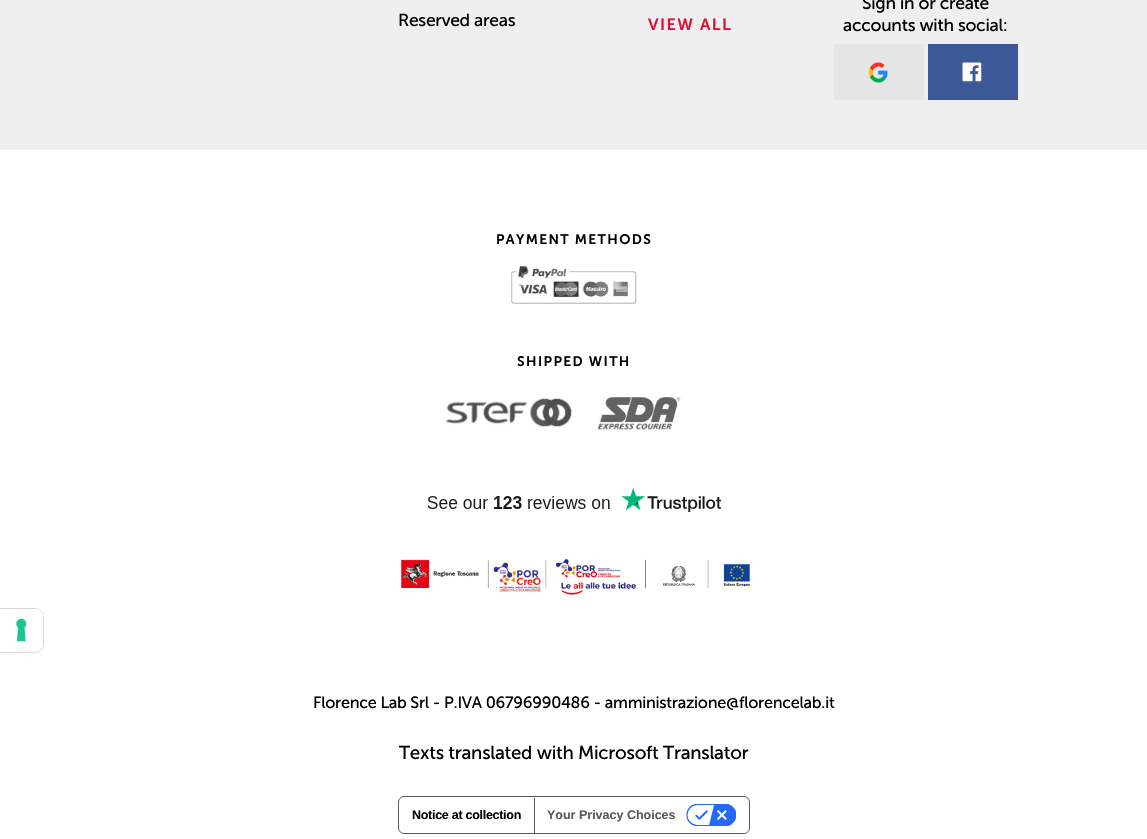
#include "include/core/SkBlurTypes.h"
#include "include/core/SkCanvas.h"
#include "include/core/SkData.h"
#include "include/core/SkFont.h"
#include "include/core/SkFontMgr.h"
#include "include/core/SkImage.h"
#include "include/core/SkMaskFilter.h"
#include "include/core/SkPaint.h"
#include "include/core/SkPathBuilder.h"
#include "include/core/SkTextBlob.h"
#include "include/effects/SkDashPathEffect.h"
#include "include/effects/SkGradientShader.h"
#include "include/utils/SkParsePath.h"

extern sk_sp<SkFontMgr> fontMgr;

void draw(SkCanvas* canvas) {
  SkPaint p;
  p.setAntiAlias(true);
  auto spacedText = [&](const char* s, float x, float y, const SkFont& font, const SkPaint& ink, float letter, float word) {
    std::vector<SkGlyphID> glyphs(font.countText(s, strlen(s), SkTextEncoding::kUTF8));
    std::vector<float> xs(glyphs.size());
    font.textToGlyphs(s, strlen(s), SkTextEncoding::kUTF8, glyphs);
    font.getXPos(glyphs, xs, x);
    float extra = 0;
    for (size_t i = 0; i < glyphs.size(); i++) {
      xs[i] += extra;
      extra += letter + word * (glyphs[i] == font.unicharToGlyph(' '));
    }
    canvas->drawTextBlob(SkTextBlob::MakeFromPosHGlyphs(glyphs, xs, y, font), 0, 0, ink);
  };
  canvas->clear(SK_ColorWHITE);
  p.setStyle(SkPaint::kStroke_Style);
  p.setStrokeWidth(1);
  p.setColor(SkColorSetRGB(217, 217, 217));
  canvas->drawPath(SkPathBuilder().moveTo(-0.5f, 608.5f).lineTo(35, 608.5f).cubicTo(39.5f, 608.5f, 43.5f, 612.5f, 43.5f, 617).lineTo(43.5f, 644).cubicTo(43.5f, 648.5f, 39.5f, 652.5f, 35, 652.5f).lineTo(-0.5f, 652.5f).close().detach(), p);
  p.setStyle(SkPaint::kFill_Style);
  p.setColor(SK_ColorWHITE);
  canvas->drawPath(SkPathBuilder().moveTo(0, 609).lineTo(35, 609).cubicTo(39.5f, 609, 43, 612.5f, 43, 617).lineTo(43, 643).cubicTo(43, 647.5f, 39.5f, 651, 35, 651).lineTo(0, 651).close().detach(), p);
  canvas->drawImageRect(SkImages::DeferredFromEncodedData(SkData::MakeFromFileName("images/1.png")), SkRect::MakeLTRB(16, 618, 27, 642), SkSamplingOptions());
  p.setColor(SkColorSetRGB(239, 239, 239));
  canvas->drawRect(SkRect::MakeLTRB(0, 0, 1147, 150), p);
  p.setColor(SkColorSetRGB(230, 230, 230));
  canvas->drawRect(SkRect::MakeLTRB(834, 44, 924, 100), p);
  canvas->drawImageRect(SkImages::DeferredFromEncodedData(SkData::MakeFromFileName("images/2.png")), SkRect::MakeLTRB(868, 62, 888, 83), SkSamplingOptions());
  p.setColor(SkColorSetRGB(59, 88, 151));
  canvas->drawRect(SkRect::MakeLTRB(928, 44, 1018, 100), p);
  canvas->drawImageRect(SkImages::DeferredFromEncodedData(SkData::MakeFromFileName("images/3.png")), SkRect::MakeLTRB(962, 62, 982, 82), SkSamplingOptions());
  canvas->drawImageRect(SkImages::DeferredFromEncodedData(SkData::MakeFromFileName("images/4.png")), SkRect::MakeLTRB(511, 266, 637, 304), SkSamplingOptions());
  canvas->drawImageRect(SkImages::DeferredFromEncodedData(SkData::MakeFromFileName("images/5.png")), SkRect::MakeLTRB(446, 398, 572, 427), SkSamplingOptions());
  canvas->drawImageRect(SkImages::DeferredFromEncodedData(SkData::MakeFromFileName("images/6.png")), SkRect::MakeLTRB(597, 397, 681, 430), SkSamplingOptions());
  canvas->drawImageRect(SkImages::DeferredFromEncodedData(SkData::MakeFromFileName("images/7.png")), SkRect::MakeLTRB(427, 488, 722, 512), SkSamplingOptions());
  canvas->drawImageRect(SkImages::DeferredFromEncodedData(SkData::MakeFromFileName("images/8.png")), SkRect::MakeLTRB(400, 559, 751, 595), SkSamplingOptions());
  p.setStyle(SkPaint::kStroke_Style);
  p.setColor(SkColorSetRGB(89, 89, 89));
  canvas->drawRoundRect(SkRect::MakeLTRB(398.5f, 796.5f, 749.5f, 833.5f), 5.5f, 5.5f, p);
  p.setStyle(SkPaint::kFill_Style);
  canvas->drawRect(SkRect::MakeLTRB(534, 798, 535, 833), p);
  canvas->drawImageRect(SkImages::DeferredFromEncodedData(SkData::MakeFromFileName("images/9.png")), SkRect::MakeLTRB(686, 804, 736, 826), SkSamplingOptions());
  SkFont font1(fontMgr->matchFamilyStyle("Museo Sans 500", SkFontStyle::Normal()), 17.5f);
  font1.setSubpixel(true);
  p.setColor(SK_ColorBLACK);
  spacedText("Reserved areas", 398, 26, font1, p, -0.28f, 0);
  SkFont font2(fontMgr->matchFamilyStyle("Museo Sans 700", SkFontStyle(600, SkFontStyle::kNormal_Width, SkFontStyle::kUpright_Slant)), 16.25f);
  font2.setSubpixel(true);
  p.setColor(SkColorSetRGB(226, 14, 53));
  spacedText("VIEW ALL", 648, 30, font2, p, 1.5f, 0);
  p.setColor(SK_ColorBLACK);
  spacedText("Sign in or create", 862, 9, font1, p, -0.28f, 0);
  spacedText("accounts with social:", 843, 31, font1, p, -0.28f, 0);
  SkFont font3(fontMgr->matchFamilyStyle("Museo Sans 700", SkFontStyle(600, SkFontStyle::kNormal_Width, SkFontStyle::kUpright_Slant)), 13.75f);
  font3.setSubpixel(true);
  spacedText("PAYMENT METHODS", 496, 244, font3, p, 1.4f, 0);
  spacedText("SHIPPED WITH", 517, 366, font3, p, 1.4f, 0);
  SkFont font4(fontMgr->matchFamilyStyle("Museo Sans 500", SkFontStyle::Normal()), 16.25f);
  font4.setSubpixel(true);
  spacedText("Florence Lab Srl - P.IVA 06796990486 - amministrazione@florencelab.it", 313, 708, font4, p, -0.28f, 0);
  SkFont font5(fontMgr->matchFamilyStyle("Museo Sans 500", SkFontStyle::Normal()), 18.75f);
  font5.setSubpixel(true);
  spacedText("Texts translated with Microsoft Translator", 399, 759, font5, p, -0.28f, 0);
  SkFont font6(fontMgr->matchFamilyStyle("Liberation Sans", SkFontStyle::Bold()), 12.5f);
  font6.setSubpixel(true);
  spacedText("Notice at collection", 412, 819, font6, p, -0.28f, 0);
  p.setColor(SkColorSetRGB(89, 89, 89));
  canvas->drawString("Your Privacy Choices", 547, 819, font6, p);
}
